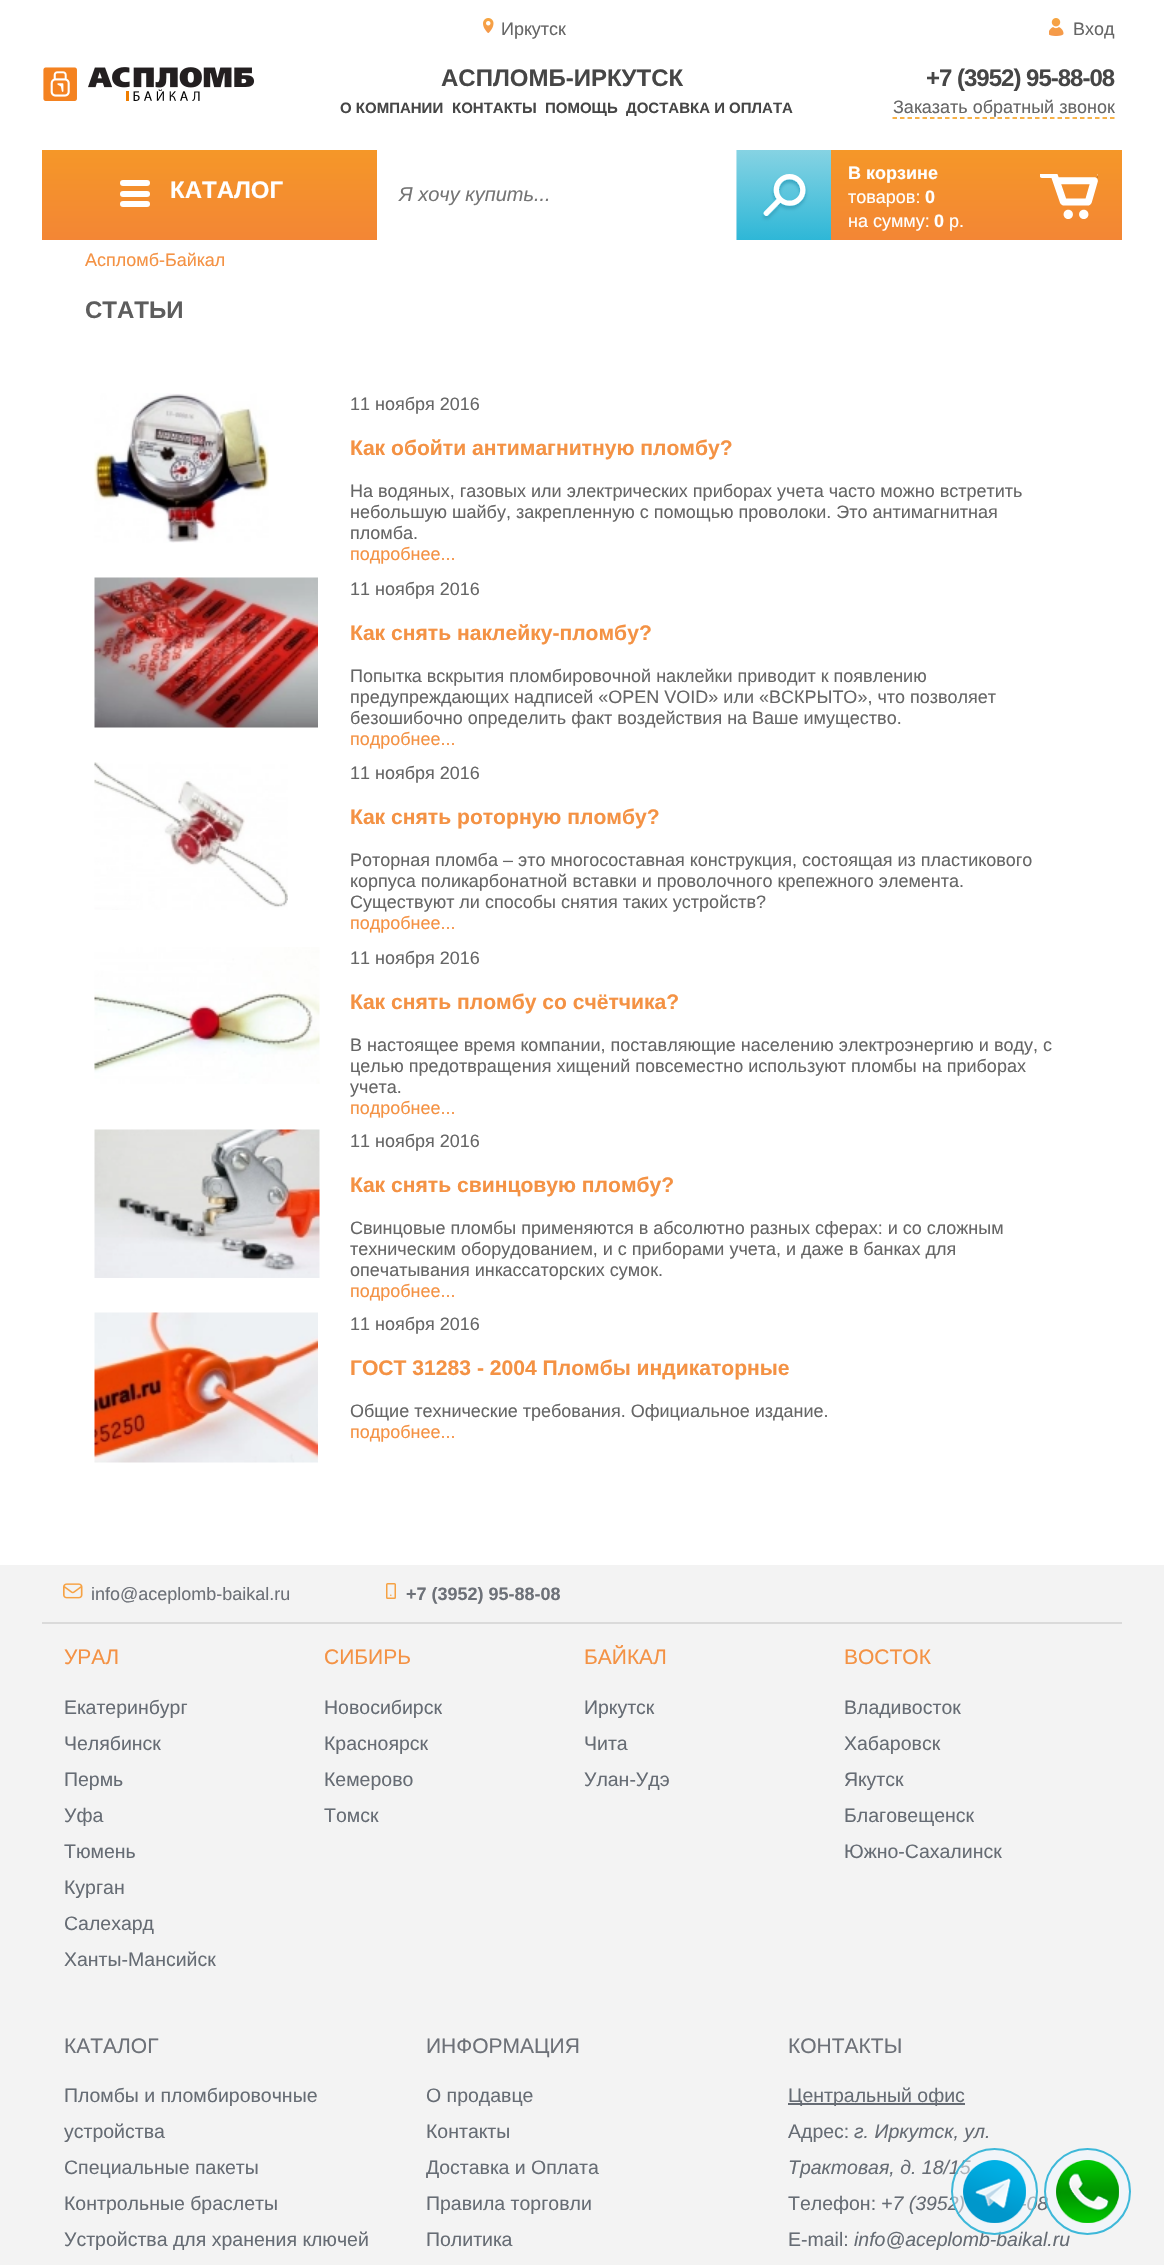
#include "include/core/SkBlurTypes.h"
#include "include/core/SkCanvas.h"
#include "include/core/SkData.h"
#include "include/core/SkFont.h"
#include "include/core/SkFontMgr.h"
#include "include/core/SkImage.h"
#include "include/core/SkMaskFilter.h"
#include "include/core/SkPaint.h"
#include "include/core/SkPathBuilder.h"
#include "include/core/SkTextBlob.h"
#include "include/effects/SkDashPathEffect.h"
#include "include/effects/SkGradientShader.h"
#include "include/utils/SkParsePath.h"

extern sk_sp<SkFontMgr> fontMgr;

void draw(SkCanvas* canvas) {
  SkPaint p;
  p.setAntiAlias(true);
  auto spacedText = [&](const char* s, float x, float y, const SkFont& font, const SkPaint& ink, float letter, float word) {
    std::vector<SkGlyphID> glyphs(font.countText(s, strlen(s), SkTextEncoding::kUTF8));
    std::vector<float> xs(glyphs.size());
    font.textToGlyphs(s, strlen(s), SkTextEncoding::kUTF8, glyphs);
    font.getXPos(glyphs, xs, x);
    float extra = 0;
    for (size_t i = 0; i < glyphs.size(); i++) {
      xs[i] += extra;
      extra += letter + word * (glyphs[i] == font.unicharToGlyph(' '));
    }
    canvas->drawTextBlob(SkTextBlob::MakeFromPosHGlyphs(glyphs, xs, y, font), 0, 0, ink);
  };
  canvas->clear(SK_ColorWHITE);
  canvas->drawImageRect(SkImages::DeferredFromEncodedData(SkData::MakeFromFileName("images/1.png")), SkRect::MakeLTRB(483, 18, 494, 33), SkSamplingOptions());
  canvas->drawImageRect(SkImages::DeferredFromEncodedData(SkData::MakeFromFileName("images/2.png")), SkRect::MakeLTRB(1049, 18, 1064, 36), SkSamplingOptions());
  canvas->drawImageRect(SkImages::DeferredFromEncodedData(SkData::MakeFromFileName("images/3.png")), SkRect::MakeLTRB(43, 67, 255, 101), SkSamplingOptions());
  p.setStyle(SkPaint::kStroke_Style);
  p.setStrokeWidth(1.5f);
  p.setColor(SkColorSetRGB(245, 151, 10));
  p.setPathEffect(SkDashPathEffect::Make({{4.5f, 3}}, 0));
  canvas->drawPath(SkPathBuilder().moveTo(892.5f, 118).lineTo(1114.5f, 118).detach(), p);
  p.setPathEffect(nullptr);
  p.setStyle(SkPaint::kFill_Style);
  {
    const SkColor colors[] = {SkColorSetRGB(245, 151, 40), SkColorSetRGB(243, 134, 53)};
    const float stops[] = {0, 1};
    const SkPoint ends[] = {{582, 150}, {582, 240}};
    p.setShader(SkGradientShader::MakeLinear(ends, colors, stops, 2, SkTileMode::kClamp));
    p.setAlpha(255);
  }
  canvas->drawRect(SkRect::MakeLTRB(42, 150, 1122, 240), p);
  p.setShader(nullptr);
  p.setColor(SK_ColorWHITE);
  canvas->drawRoundRect(SkRect::MakeLTRB(120, 180, 150, 186), 3, 3, p);
  canvas->drawRoundRect(SkRect::MakeLTRB(120, 191, 150, 197), 3, 3, p);
  canvas->drawRoundRect(SkRect::MakeLTRB(120, 201, 150, 207), 3, 3, p);
  canvas->drawRect(SkRect::MakeLTRB(377, 150, 737, 240), p);
  canvas->drawImageRect(SkImages::DeferredFromEncodedData(SkData::MakeFromFileName("images/4.png")), SkRect::MakeLTRB(736, 150, 831, 240), SkSamplingOptions());
  canvas->drawImageRect(SkImages::DeferredFromEncodedData(SkData::MakeFromFileName("images/5.png")), SkRect::MakeLTRB(1040, 174, 1098, 219), SkSamplingOptions());
  canvas->drawImageRect(SkImages::DeferredFromEncodedData(SkData::MakeFromFileName("images/6.png")), SkRect::MakeLTRB(94, 393, 269, 543), SkSamplingOptions());
  canvas->drawImageRect(SkImages::DeferredFromEncodedData(SkData::MakeFromFileName("images/7.png")), SkRect::MakeLTRB(94, 577, 318, 728), SkSamplingOptions());
  canvas->drawImageRect(SkImages::DeferredFromEncodedData(SkData::MakeFromFileName("images/8.png")), SkRect::MakeLTRB(94, 762, 288, 910), SkSamplingOptions());
  canvas->drawImageRect(SkImages::DeferredFromEncodedData(SkData::MakeFromFileName("images/9.png")), SkRect::MakeLTRB(94, 947, 320, 1084), SkSamplingOptions());
  canvas->drawImageRect(SkImages::DeferredFromEncodedData(SkData::MakeFromFileName("images/10.png")), SkRect::MakeLTRB(94, 1129, 320, 1278), SkSamplingOptions());
  canvas->drawImageRect(SkImages::DeferredFromEncodedData(SkData::MakeFromFileName("images/11.png")), SkRect::MakeLTRB(94, 1312, 318, 1463), SkSamplingOptions());
  p.setColor(SkColorSetRGB(243, 243, 243));
  canvas->drawRect(SkRect::MakeLTRB(0, 1565, 1164, 2265), p);
  p.setColor(SkColorSetRGB(218, 218, 218));
  canvas->drawRect(SkRect::MakeLTRB(42, 1622, 1122, 1624), p);
  canvas->drawImageRect(SkImages::DeferredFromEncodedData(SkData::MakeFromFileName("images/12.png")), SkRect::MakeLTRB(63, 1583, 83, 1599), SkSamplingOptions());
  p.setStyle(SkPaint::kStroke_Style);
  p.setColor(SkColorSetRGB(246, 162, 68));
  canvas->drawRoundRect(SkRect::MakeLTRB(386.75f, 1583.75f, 395.25f, 1598.25f), 0.75f, 0.75f, p);
  p.setStyle(SkPaint::kFill_Style);
  canvas->drawCircle(390.8f, 1595.2f, 0.8f, p);
  p.setColor(SkColorSetRGB(102, 108, 116));
  canvas->drawRect(SkRect::MakeLTRB(788, 2103, 965, 2105), p);
  SkFont font1(fontMgr->matchFamilyStyle("Liberation Sans", SkFontStyle::Normal()), 18);
  font1.setSubpixel(true);
  p.setColor(SkColorSetRGB(102, 102, 102));
  canvas->drawString("Иркутск", 501, 35, font1, p);
  canvas->drawString("Вход", 1073, 35, font1, p);
  SkFont font2(fontMgr->matchFamilyStyle("Liberation Sans", SkFontStyle::Bold()), 24);
  font2.setSubpixel(true);
  p.setColor(SkColorSetRGB(70, 70, 70));
  canvas->drawString("АСПЛОМБ-ИРКУТСК", 441, 86, font2, p);
  SkFont font3(fontMgr->matchFamilyStyle("Liberation Sans", SkFontStyle::Bold()), 15);
  font3.setSubpixel(true);
  canvas->drawString("О КОМПАНИИ", 340, 113, font3, p);
  canvas->drawString("КОНТАКТЫ", 452, 113, font3, p);
  canvas->drawString("ПОМОЩЬ", 545, 113, font3, p);
  canvas->drawString("ДОСТАВКА И ОПЛАТА", 626, 113, font3, p);
  spacedText("+7 (3952) 95-88-08", 926, 86, font2, p, -1, 0);
  p.setColor(SkColorSetRGB(102, 102, 102));
  canvas->drawString("Заказать обратный звонок", 893, 113, font1, p);
  p.setColor(SK_ColorWHITE);
  canvas->drawString("КАТАЛОГ", 170, 198, font2, p);
  SkFont font4(fontMgr->matchFamilyStyle("Liberation Sans", SkFontStyle::Italic()), 20);
  font4.setSubpixel(true);
  p.setColor(SkColorSetRGB(117, 117, 117));
  canvas->drawString("Я хочу купить...", 399, 201, font4, p);
  SkFont font5(fontMgr->matchFamilyStyle("Liberation Sans", SkFontStyle::Bold()), 18);
  font5.setSubpixel(true);
  p.setColor(SK_ColorWHITE);
  canvas->drawString("В корзине", 848, 179, font5, p);
  canvas->drawString("товаров:", 848, 203, font1, p);
  canvas->drawString("0", 925, 203, font5, p);
  canvas->drawString("на сумму:", 848, 227, font1, p);
  canvas->drawString("0", 934, 227, font5, p);
  canvas->drawString("р.", 949, 227, font1, p);
  p.setColor(SkColorSetRGB(244, 146, 68));
  canvas->drawString("Аспломб-Байкал", 85, 266, font1, p);
  p.setColor(SkColorSetRGB(93, 93, 93));
  canvas->drawString("СТАТЬИ", 85, 318, font2, p);
  p.setColor(SkColorSetRGB(102, 102, 102));
  canvas->drawString("11 ноября 2016", 350, 410, font1, p);
  SkFont font6(fontMgr->matchFamilyStyle("Liberation Sans", SkFontStyle::Bold()), 21.1f);
  font6.setSubpixel(true);
  p.setColor(SkColorSetRGB(244, 146, 68));
  canvas->drawString("Как обойти антимагнитную пломбу?", 350, 455, font6, p);
  p.setColor(SkColorSetRGB(102, 102, 102));
  canvas->drawString("На водяных, газовых или электрических приборах учета часто можно встретить", 350, 497, font1, p);
  canvas->drawString("небольшую шайбу, закрепленную с помощью проволоки. Это антимагнитная", 350, 518, font1, p);
  canvas->drawString("пломба.", 350, 539, font1, p);
  p.setColor(SkColorSetRGB(244, 146, 68));
  canvas->drawString("подробнее...", 350, 560, font1, p);
  p.setColor(SkColorSetRGB(102, 102, 102));
  canvas->drawString("11 ноября 2016", 350, 595, font1, p);
  p.setColor(SkColorSetRGB(244, 146, 68));
  canvas->drawString("Как снять наклейку-пломбу?", 350, 640, font6, p);
  p.setColor(SkColorSetRGB(102, 102, 102));
  canvas->drawString("Попытка вскрытия пломбировочной наклейки приводит к появлению", 350, 682, font1, p);
  canvas->drawString("предупреждающих надписей «OPEN VOID» или «ВСКРЫТО», что позволяет", 350, 703, font1, p);
  canvas->drawString("безошибочно определить факт воздействия на Ваше имущество.", 350, 724, font1, p);
  p.setColor(SkColorSetRGB(244, 146, 68));
  canvas->drawString("подробнее...", 350, 745, font1, p);
  p.setColor(SkColorSetRGB(102, 102, 102));
  canvas->drawString("11 ноября 2016", 350, 779, font1, p);
  p.setColor(SkColorSetRGB(244, 146, 68));
  canvas->drawString("Как снять роторную пломбу?", 350, 824, font6, p);
  p.setColor(SkColorSetRGB(102, 102, 102));
  canvas->drawString("Роторная пломба – это многосоставная конструкция, состоящая из пластикового", 350, 866, font1, p);
  canvas->drawString("корпуса поликарбонатной вставки и проволочного крепежного элемента.", 350, 887, font1, p);
  canvas->drawString("Существуют ли способы снятия таких устройств?", 350, 908, font1, p);
  p.setColor(SkColorSetRGB(244, 146, 68));
  canvas->drawString("подробнее...", 350, 929, font1, p);
  p.setColor(SkColorSetRGB(102, 102, 102));
  canvas->drawString("11 ноября 2016", 350, 964, font1, p);
  p.setColor(SkColorSetRGB(244, 146, 68));
  canvas->drawString("Как снять пломбу со счётчика?", 350, 1009, font6, p);
  p.setColor(SkColorSetRGB(102, 102, 102));
  canvas->drawString("В настоящее время компании, поставляющие населению электроэнергию и воду, с", 350, 1051, font1, p);
  canvas->drawString("целью предотвращения хищений повсеместно используют пломбы на приборах", 350, 1072, font1, p);
  canvas->drawString("учета.", 350, 1093, font1, p);
  p.setColor(SkColorSetRGB(244, 146, 68));
  canvas->drawString("подробнее...", 350, 1114, font1, p);
  p.setColor(SkColorSetRGB(102, 102, 102));
  canvas->drawString("11 ноября 2016", 350, 1147, font1, p);
  p.setColor(SkColorSetRGB(244, 146, 68));
  canvas->drawString("Как снять свинцовую пломбу?", 350, 1192, font6, p);
  p.setColor(SkColorSetRGB(102, 102, 102));
  canvas->drawString("Свинцовые пломбы применяются в абсолютно разных сферах: и со сложным", 350, 1234, font1, p);
  canvas->drawString("техническим оборудованием, и с приборами учета, и даже в банках для", 350, 1255, font1, p);
  canvas->drawString("опечатывания инкассаторских сумок.", 350, 1276, font1, p);
  p.setColor(SkColorSetRGB(244, 146, 68));
  canvas->drawString("подробнее...", 350, 1297, font1, p);
  p.setColor(SkColorSetRGB(102, 102, 102));
  canvas->drawString("11 ноября 2016", 350, 1330, font1, p);
  p.setColor(SkColorSetRGB(244, 146, 68));
  canvas->drawString("ГОСТ 31283 - 2004 Пломбы индикаторные", 350, 1375, font6, p);
  p.setColor(SkColorSetRGB(102, 102, 102));
  canvas->drawString("Общие технические требования. Официальное издание.", 350, 1417, font1, p);
  p.setColor(SkColorSetRGB(244, 146, 68));
  canvas->drawString("подробнее...", 350, 1438, font1, p);
  p.setColor(SkColorSetRGB(109, 113, 120));
  canvas->drawString("info@aceplomb-baikal.ru", 91, 1600, font1, p);
  canvas->drawString("+7 (3952) 95-88-08", 406, 1600, font5, p);
  SkFont font7(fontMgr->matchFamilyStyle("Liberation Sans", SkFontStyle::Normal()), 21);
  font7.setSubpixel(true);
  p.setColor(SkColorSetRGB(244, 146, 68));
  canvas->drawString("УРАЛ", 64, 1664, font7, p);
  SkFont font8(fontMgr->matchFamilyStyle("Liberation Sans", SkFontStyle::Normal()), 19.5f);
  font8.setSubpixel(true);
  p.setColor(SkColorSetRGB(102, 108, 116));
  canvas->drawString("Екатеринбург", 64, 1714, font8, p);
  canvas->drawString("Челябинск", 64, 1750, font8, p);
  canvas->drawString("Пермь", 64, 1786, font8, p);
  canvas->drawString("Уфа", 64, 1822, font8, p);
  canvas->drawString("Тюмень", 64, 1858, font8, p);
  canvas->drawString("Курган", 64, 1894, font8, p);
  canvas->drawString("Салехард", 64, 1930, font8, p);
  canvas->drawString("Ханты-Мансийск", 64, 1966, font8, p);
  p.setColor(SkColorSetRGB(244, 146, 68));
  canvas->drawString("СИБИРЬ", 324, 1664, font7, p);
  p.setColor(SkColorSetRGB(102, 108, 116));
  canvas->drawString("Новосибирск", 324, 1714, font8, p);
  canvas->drawString("Красноярск", 324, 1750, font8, p);
  canvas->drawString("Кемерово", 324, 1786, font8, p);
  canvas->drawString("Томск", 324, 1822, font8, p);
  p.setColor(SkColorSetRGB(244, 146, 68));
  canvas->drawString("БАЙКАЛ", 584, 1664, font7, p);
  p.setColor(SkColorSetRGB(102, 108, 116));
  canvas->drawString("Иркутск", 584, 1714, font8, p);
  canvas->drawString("Чита", 584, 1750, font8, p);
  canvas->drawString("Улан-Удэ", 584, 1786, font8, p);
  p.setColor(SkColorSetRGB(244, 146, 68));
  canvas->drawString("ВОСТОК", 844, 1664, font7, p);
  p.setColor(SkColorSetRGB(102, 108, 116));
  canvas->drawString("Владивосток", 844, 1714, font8, p);
  canvas->drawString("Хабаровск", 844, 1750, font8, p);
  canvas->drawString("Якутск", 844, 1786, font8, p);
  canvas->drawString("Благовещенск", 844, 1822, font8, p);
  canvas->drawString("Южно-Сахалинск", 844, 1858, font8, p);
  p.setColor(SkColorSetRGB(109, 113, 120));
  canvas->drawString("КАТАЛОГ", 64, 2053, font7, p);
  p.setColor(SkColorSetRGB(102, 108, 116));
  canvas->drawString("Пломбы и пломбировочные", 64, 2102, font8, p);
  canvas->drawString("устройства", 64, 2138, font8, p);
  canvas->drawString("Специальные пакеты", 64, 2174, font8, p);
  canvas->drawString("Контрольные браслеты", 64, 2210, font8, p);
  canvas->drawString("Устройства для хранения ключей", 64, 2246, font8, p);
  p.setColor(SkColorSetRGB(109, 113, 120));
  canvas->drawString("ИНФОРМАЦИЯ", 426, 2053, font7, p);
  p.setColor(SkColorSetRGB(102, 108, 116));
  canvas->drawString("О продавце", 426, 2102, font8, p);
  canvas->drawString("Контакты", 426, 2138, font8, p);
  canvas->drawString("Доставка и Оплата", 426, 2174, font8, p);
  canvas->drawString("Правила торговли", 426, 2210, font8, p);
  canvas->drawString("Политика", 426, 2246, font8, p);
  p.setColor(SkColorSetRGB(109, 113, 120));
  canvas->drawString("КОНТАКТЫ", 788, 2053, font7, p);
  p.setColor(SkColorSetRGB(102, 108, 116));
  canvas->drawString("Центральный офис", 788, 2102, font8, p);
  canvas->drawString("Адрес:", 788, 2138, font8, p);
  SkFont font9(fontMgr->matchFamilyStyle("Liberation Sans", SkFontStyle::Italic()), 19.5f);
  font9.setSubpixel(true);
  canvas->drawString("г. Иркутск, ул.", 854, 2138, font9, p);
  canvas->drawString("Трактовая, д. 18/15", 788, 2174, font9, p);
  canvas->drawString("Телефон:", 788, 2210, font8, p);
  canvas->drawString("+7 (3952)", 881, 2210, font9, p);
  canvas->drawString("-08", 1020, 2210, font9, p);
  canvas->drawString("E-mail:", 788, 2246, font8, p);
  canvas->drawString("info@aceplomb-baikal.ru", 854, 2246, font9, p);
  p.setColor(SkColorSetARGB(128, 240, 248, 255));
  canvas->drawCircle(994.5f, 2191.5f, 42.5f, p);
  p.setStyle(SkPaint::kStroke_Style);
  p.setStrokeWidth(2);
  p.setColor(SkColorSetRGB(61, 184, 217));
  canvas->drawCircle(994.5f, 2191.5f, 42.5f, p);
  canvas->drawImageRect(SkImages::DeferredFromEncodedData(SkData::MakeFromFileName("images/13.png")), SkRect::MakeLTRB(963, 2160, 1026, 2223), SkSamplingOptions());
  p.setStyle(SkPaint::kFill_Style);
  p.setColor(SkColorSetARGB(128, 240, 248, 255));
  canvas->drawCircle(1087.5f, 2191.5f, 42.5f, p);
  p.setStyle(SkPaint::kStroke_Style);
  p.setColor(SkColorSetRGB(61, 184, 217));
  canvas->drawCircle(1087.5f, 2191.5f, 42.5f, p);
  canvas->drawImageRect(SkImages::DeferredFromEncodedData(SkData::MakeFromFileName("images/14.png")), SkRect::MakeLTRB(1056, 2160, 1119, 2223), SkSamplingOptions());
}
